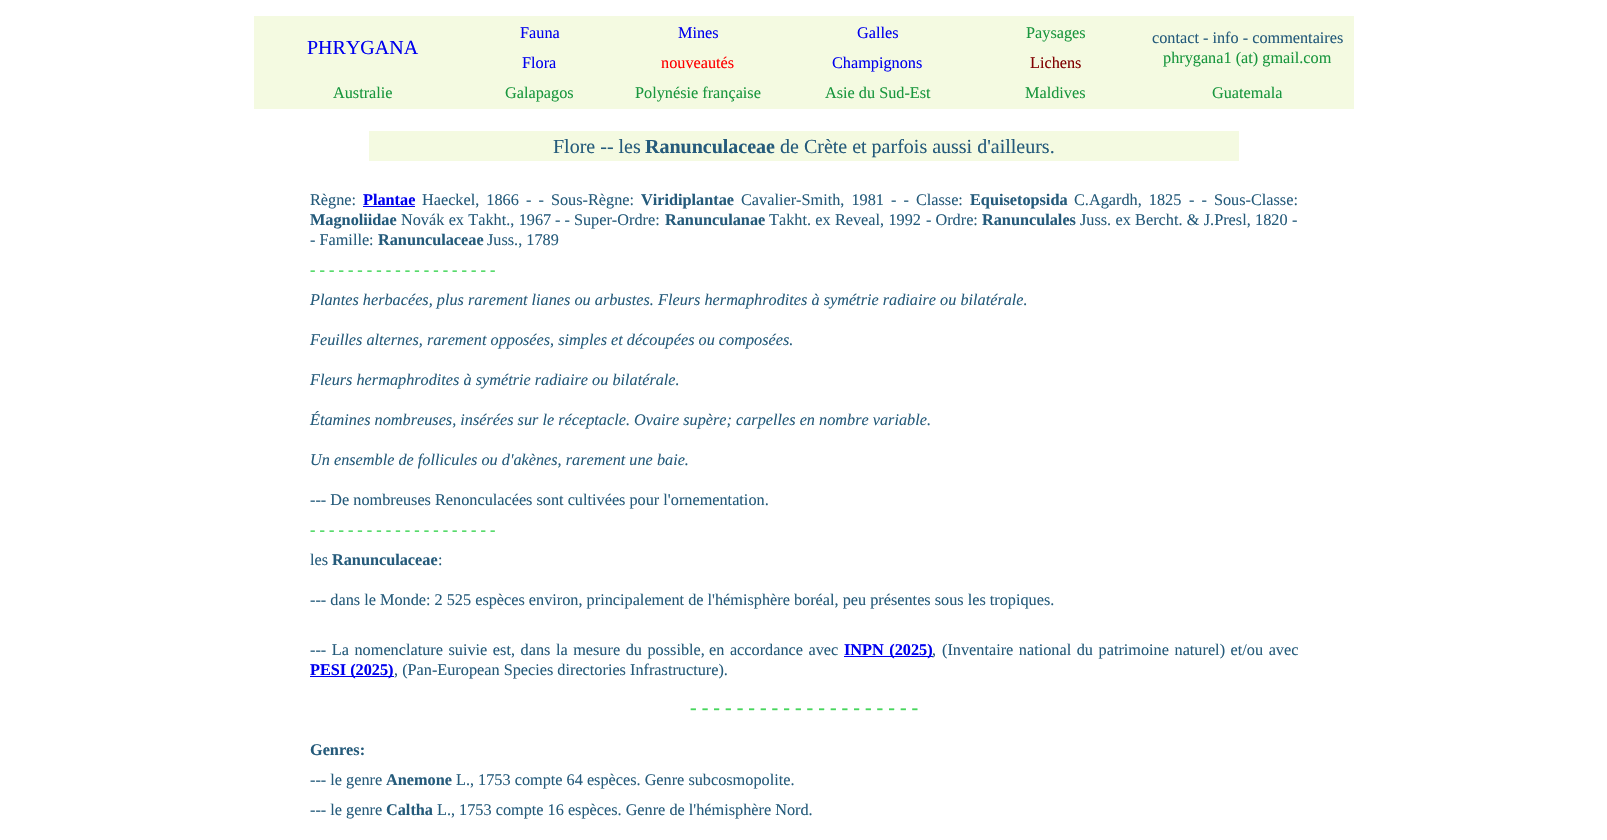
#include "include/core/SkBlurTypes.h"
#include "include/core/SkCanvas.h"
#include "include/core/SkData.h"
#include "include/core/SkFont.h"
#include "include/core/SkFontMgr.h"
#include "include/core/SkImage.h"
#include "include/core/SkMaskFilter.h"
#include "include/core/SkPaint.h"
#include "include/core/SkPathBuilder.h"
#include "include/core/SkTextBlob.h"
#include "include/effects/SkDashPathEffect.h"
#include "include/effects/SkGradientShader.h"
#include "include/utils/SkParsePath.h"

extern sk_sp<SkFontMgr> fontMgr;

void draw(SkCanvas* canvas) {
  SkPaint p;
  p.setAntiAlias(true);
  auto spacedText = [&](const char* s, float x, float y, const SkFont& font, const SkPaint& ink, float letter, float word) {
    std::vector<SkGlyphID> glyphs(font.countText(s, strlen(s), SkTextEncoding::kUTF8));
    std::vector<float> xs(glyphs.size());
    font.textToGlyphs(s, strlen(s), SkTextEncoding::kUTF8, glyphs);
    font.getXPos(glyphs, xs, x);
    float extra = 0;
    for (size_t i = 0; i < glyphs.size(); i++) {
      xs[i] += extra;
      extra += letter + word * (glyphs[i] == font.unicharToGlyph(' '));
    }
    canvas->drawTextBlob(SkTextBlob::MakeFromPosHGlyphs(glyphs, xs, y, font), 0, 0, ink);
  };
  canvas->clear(SK_ColorWHITE);
  p.setColor(SkColorSetRGB(244, 250, 225));
  canvas->drawRect(SkRect::MakeLTRB(254, 16, 1354, 109), p);
  canvas->drawRect(SkRect::MakeLTRB(369, 131, 1239, 161), p);
  p.setColor(SkColorSetRGB(0, 0, 238));
  canvas->drawRect(SkRect::MakeLTRB(363, 206, 415, 207), p);
  canvas->drawRect(SkRect::MakeLTRB(844, 656, 933, 657), p);
  canvas->drawRect(SkRect::MakeLTRB(310, 676, 394, 677), p);
  SkFont font1(fontMgr->matchFamilyStyle("Liberation Serif", SkFontStyle::Normal()), 20);
  font1.setSubpixel(true);
  canvas->drawString("PHRYGANA", 307, 54, font1, p);
  SkFont font2(fontMgr->matchFamilyStyle("Liberation Serif", SkFontStyle::Normal()), 16.25f);
  font2.setSubpixel(true);
  canvas->drawString("Fauna", 520, 38, font2, p);
  canvas->drawString("Mines", 678, 38, font2, p);
  canvas->drawString("Galles", 857, 38, font2, p);
  p.setColor(SkColorSetRGB(25, 151, 62));
  canvas->drawString("Paysages", 1026, 38, font2, p);
  p.setColor(SkColorSetRGB(37, 91, 123));
  canvas->drawString("contact - info - commentaires", 1152, 43, font2, p);
  p.setColor(SkColorSetRGB(25, 151, 62));
  canvas->drawString("phrygana1 (at) gmail.com", 1163, 63, font2, p);
  p.setColor(SkColorSetRGB(0, 0, 238));
  canvas->drawString("Flora", 522, 68, font2, p);
  p.setColor(SkColorSetRGB(255, 0, 0));
  canvas->drawString("nouveautés", 661, 68, font2, p);
  p.setColor(SkColorSetRGB(0, 0, 238));
  canvas->drawString("Champignons", 832, 68, font2, p);
  p.setColor(SkColorSetRGB(128, 0, 0));
  canvas->drawString("Lichens", 1030, 68, font2, p);
  p.setColor(SkColorSetRGB(25, 151, 62));
  canvas->drawString("Australie", 333, 98, font2, p);
  canvas->drawString("Galapagos", 505, 98, font2, p);
  canvas->drawString("Polynésie française", 635, 98, font2, p);
  canvas->drawString("Asie du Sud-Est", 825, 98, font2, p);
  canvas->drawString("Maldives", 1025, 98, font2, p);
  canvas->drawString("Guatemala", 1212, 98, font2, p);
  p.setColor(SkColorSetRGB(37, 91, 123));
  canvas->drawString("Flore -- les", 553, 153, font1, p);
  SkFont font3(fontMgr->matchFamilyStyle("Liberation Serif", SkFontStyle::Bold()), 20);
  font3.setSubpixel(true);
  canvas->drawString("Ranunculaceae", 645, 153, font3, p);
  canvas->drawString("de Crète et parfois aussi d'ailleurs.", 780, 153, font1, p);
  canvas->drawString("Règne:", 310, 205, font2, p);
  SkFont font4(fontMgr->matchFamilyStyle("Liberation Serif", SkFontStyle::Bold()), 16.25f);
  font4.setSubpixel(true);
  p.setColor(SkColorSetRGB(0, 0, 238));
  canvas->drawString("Plantae", 363, 205, font4, p);
  p.setColor(SkColorSetRGB(37, 91, 123));
  spacedText("Haeckel, 1866", 422, 205, font2, p, 0, 3);
  spacedText("- - Sous-Règne:", 526, 205, font2, p, 0, 3);
  canvas->drawString("Viridiplantae", 641, 205, font4, p);
  spacedText("Cavalier-Smith, 1981", 741, 205, font2, p, 0, 3);
  spacedText("- - Classe:", 891, 205, font2, p, 0, 3);
  canvas->drawString("Equisetopsida", 970, 205, font4, p);
  spacedText("C.Agardh, 1825", 1074, 205, font2, p, 0, 3);
  spacedText("- - Sous-Classe:", 1189, 205, font2, p, 0, 3);
  canvas->drawString("Magnoliidae", 310, 225, font4, p);
  spacedText("Novák ex Takht., 1967", 401, 225, font2, p, 0, 0.25f);
  canvas->drawString("- - Super-Ordre:", 555, 225, font2, p);
  canvas->drawString("Ranunculanae", 665, 225, font4, p);
  spacedText("Takht. ex Reveal, 1992", 769, 225, font2, p, 0, 0.25f);
  canvas->drawString("- Ordre:", 926, 225, font2, p);
  canvas->drawString("Ranunculales", 982, 225, font4, p);
  spacedText("Juss. ex Bercht. & J.Presl, 1820", 1080, 225, font2, p, 0, 0.25f);
  canvas->drawString("-", 1292, 225, font2, p);
  canvas->drawString("- Famille:", 310, 245, font2, p);
  canvas->drawString("Ranunculaceae", 378, 245, font4, p);
  canvas->drawString("Juss., 1789", 487, 245, font2, p);
  p.setColor(SkColorSetRGB(70, 214, 92));
  canvas->drawString("- - - - - - - - - - - - - - - - - - - -", 310, 275, font4, p);
  SkFont font5(fontMgr->matchFamilyStyle("Liberation Serif", SkFontStyle::Italic()), 16.25f);
  font5.setSubpixel(true);
  p.setColor(SkColorSetRGB(37, 91, 123));
  canvas->drawString("Plantes herbacées, plus rarement lianes ou arbustes. Fleurs hermaphrodites à symétrie radiaire ou bilatérale.", 310, 305, font5, p);
  canvas->drawString("Feuilles alternes, rarement opposées, simples et découpées ou composées.", 310, 345, font5, p);
  canvas->drawString("Fleurs hermaphrodites à symétrie radiaire ou bilatérale.", 310, 385, font5, p);
  canvas->drawString("Étamines nombreuses, insérées sur le réceptacle. Ovaire supère; carpelles en nombre variable.", 310, 425, font5, p);
  canvas->drawString("Un ensemble de follicules ou d'akènes, rarement une baie.", 310, 465, font5, p);
  canvas->drawString("--- De nombreuses Renonculacées sont cultivées pour l'ornementation.", 310, 505, font2, p);
  p.setColor(SkColorSetRGB(70, 214, 92));
  canvas->drawString("- - - - - - - - - - - - - - - - - - - -", 310, 535, font4, p);
  p.setColor(SkColorSetRGB(37, 91, 123));
  canvas->drawString("les", 310, 565, font2, p);
  canvas->drawString("Ranunculaceae", 332, 565, font4, p);
  canvas->drawString(":", 438, 565, font2, p);
  canvas->drawString("--- dans le Monde: 2 525 espèces environ, principalement de l'hémisphère boréal, peu présentes sous les tropiques.", 310, 605, font2, p);
  spacedText("--- La nomenclature suivie est, dans la mesure du possible,", 310, 655, font2, p, 0, 1.5f);
  spacedText("en accordance avec", 709, 655, font2, p, 0, 1.5f);
  p.setColor(SkColorSetRGB(0, 0, 238));
  spacedText("INPN (2025)", 844, 655, font4, p, 0, 1.5f);
  p.setColor(SkColorSetRGB(37, 91, 123));
  canvas->drawString(",", 932, 655, font2, p);
  spacedText("(Inventaire national du patrimoine naturel) et/ou avec", 942, 655, font2, p, 0, 1.5f);
  p.setColor(SkColorSetRGB(0, 0, 238));
  canvas->drawString("PESI (2025)", 310, 675, font4, p);
  p.setColor(SkColorSetRGB(37, 91, 123));
  canvas->drawString(", (Pan-European Species directories Infrastructure).", 394, 675, font2, p);
  p.setColor(SkColorSetRGB(70, 214, 92));
  canvas->drawString("- - - - - - - - - - - - - - - - - - - -", 690, 714, font3, p);
  p.setColor(SkColorSetRGB(37, 91, 123));
  canvas->drawString("Genres:", 310, 755, font4, p);
  canvas->drawString("--- le genre", 310, 785, font2, p);
  canvas->drawString("Anemone", 386, 785, font4, p);
  canvas->drawString("L., 1753 compte 64 espèces. Genre subcosmopolite.", 456, 785, font2, p);
  canvas->drawString("--- le genre", 310, 815, font2, p);
  canvas->drawString("Caltha", 386, 815, font4, p);
  canvas->drawString("L., 1753 compte 16 espèces. Genre de l'hémisphère Nord.", 437, 815, font2, p);
}
